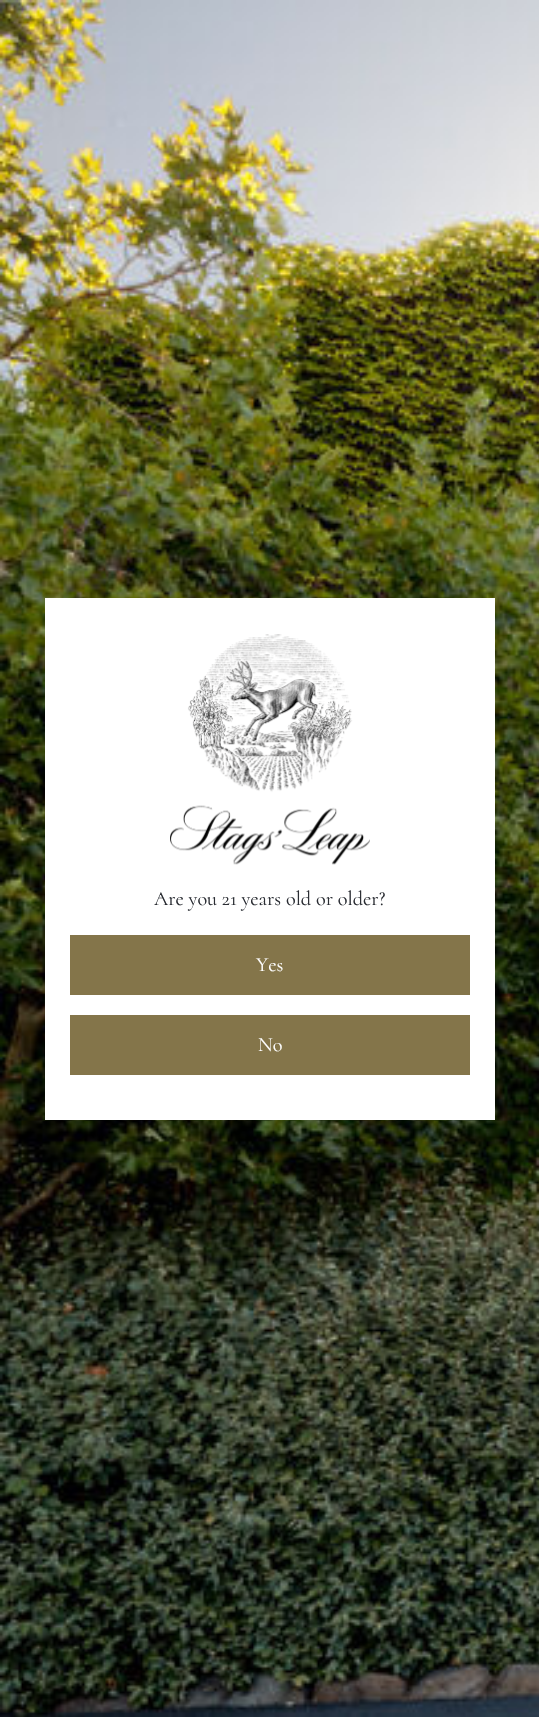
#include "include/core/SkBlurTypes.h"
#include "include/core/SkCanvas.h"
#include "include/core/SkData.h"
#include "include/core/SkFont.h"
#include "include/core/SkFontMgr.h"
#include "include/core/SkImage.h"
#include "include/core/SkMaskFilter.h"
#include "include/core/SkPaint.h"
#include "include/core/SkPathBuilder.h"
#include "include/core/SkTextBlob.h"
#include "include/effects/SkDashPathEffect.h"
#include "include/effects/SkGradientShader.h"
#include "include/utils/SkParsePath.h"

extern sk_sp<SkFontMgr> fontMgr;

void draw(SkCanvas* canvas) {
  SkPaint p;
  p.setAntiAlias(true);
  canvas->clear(SK_ColorWHITE);
  canvas->drawImageRect(SkImages::DeferredFromEncodedData(SkData::MakeFromFileName("images/1.png")), SkRect::MakeLTRB(0, 0, 539, 1717), SkSamplingOptions());
  p.setColor(SK_ColorWHITE);
  canvas->drawRect(SkRect::MakeLTRB(45, 598, 495, 1120), p);
  canvas->drawImageRect(SkImages::DeferredFromEncodedData(SkData::MakeFromFileName("images/2.png")), SkRect::MakeLTRB(170, 634, 370, 865), SkSamplingOptions());
  p.setColor(SkColorSetRGB(132, 117, 74));
  canvas->drawRect(SkRect::MakeLTRB(70, 935, 470, 995), p);
  canvas->drawRect(SkRect::MakeLTRB(70, 1015, 470, 1075), p);
  SkFont font1(fontMgr->matchFamilyStyle("Cormorant", SkFontStyle::Normal()), 20.25f);
  font1.setSubpixel(true);
  p.setColor(SkColorSetRGB(42, 45, 51));
  canvas->drawString("Are you 21 years old or older?", 154, 905, font1, p);
  p.setColor(SK_ColorWHITE);
  canvas->drawString("Yes", 256, 971, font1, p);
  canvas->drawString("No", 258, 1051, font1, p);
}
